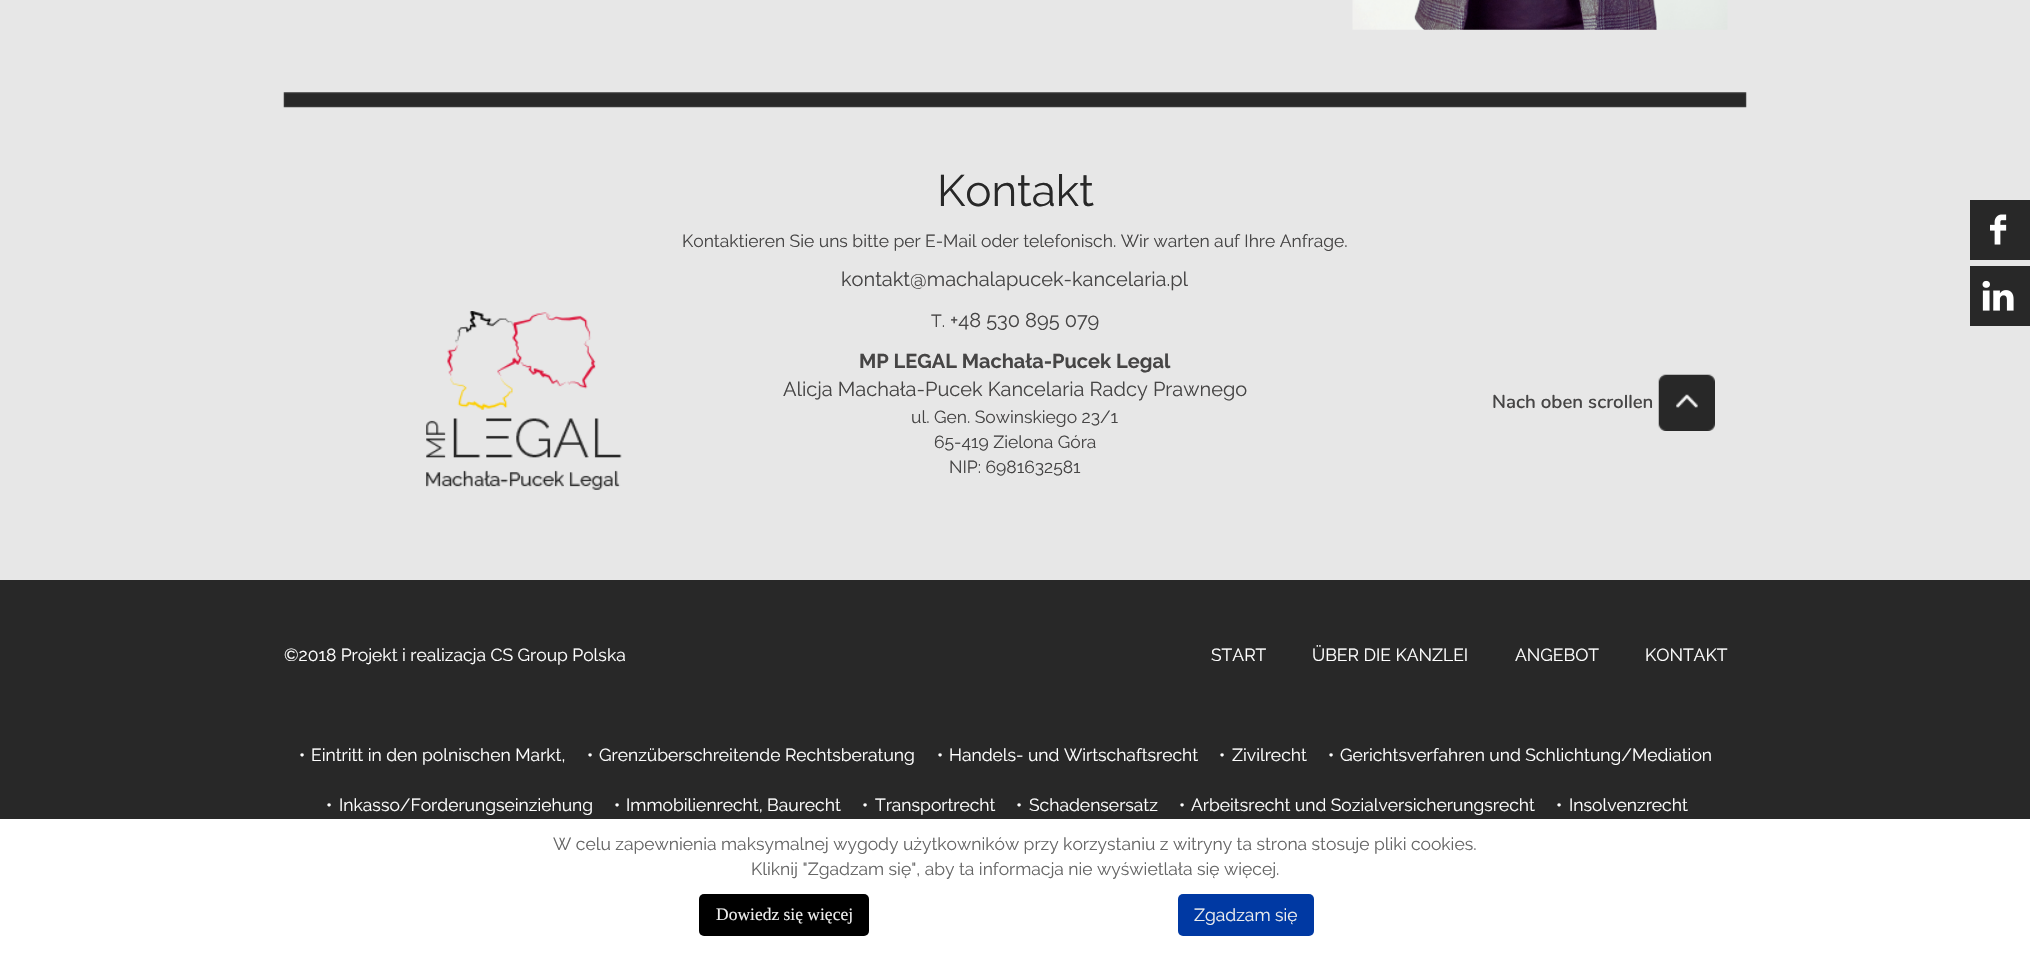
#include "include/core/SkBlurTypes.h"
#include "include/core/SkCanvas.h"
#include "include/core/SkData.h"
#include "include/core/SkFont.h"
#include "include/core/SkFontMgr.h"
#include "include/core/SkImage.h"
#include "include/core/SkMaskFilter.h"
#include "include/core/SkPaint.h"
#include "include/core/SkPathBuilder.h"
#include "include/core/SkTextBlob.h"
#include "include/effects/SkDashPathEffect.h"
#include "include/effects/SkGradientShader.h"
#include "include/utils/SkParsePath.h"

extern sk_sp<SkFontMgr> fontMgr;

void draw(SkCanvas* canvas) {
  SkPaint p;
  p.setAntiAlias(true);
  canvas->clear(SkColorSetRGB(231, 231, 231));
  canvas->drawImageRect(SkImages::DeferredFromEncodedData(SkData::MakeFromFileName("images/1.png")), SkRect::MakeLTRB(1352, 0, 1728, 30), SkSamplingOptions());
  canvas->drawImageRect(SkImages::DeferredFromEncodedData(SkData::MakeFromFileName("images/2.png")), SkRect::MakeLTRB(283, 92, 1747, 108), SkSamplingOptions());
  canvas->drawImageRect(SkImages::DeferredFromEncodedData(SkData::MakeFromFileName("images/3.png")), SkRect::MakeLTRB(426, 311, 622, 490), SkSamplingOptions());
  canvas->drawImageRect(SkImages::DeferredFromEncodedData(SkData::MakeFromFileName("images/4.png")), SkRect::MakeLTRB(1658, 374, 1715, 431), SkSamplingOptions());
  p.setColor(SkColorSetRGB(40, 40, 40));
  canvas->drawRect(SkRect::MakeLTRB(0, 580, 2030, 819), p);
  canvas->drawRect(SkRect::MakeLTRB(1970, 200, 2030, 260), p);
  canvas->drawImageRect(SkImages::DeferredFromEncodedData(SkData::MakeFromFileName("images/5.png")), SkRect::MakeLTRB(1990, 214, 2007, 245), SkSamplingOptions());
  canvas->drawRect(SkRect::MakeLTRB(1970, 266, 2030, 326), p);
  canvas->drawImageRect(SkImages::DeferredFromEncodedData(SkData::MakeFromFileName("images/6.png")), SkRect::MakeLTRB(1982, 280, 2014, 311), SkSamplingOptions());
  p.setColor(SK_ColorWHITE);
  canvas->drawRect(SkRect::MakeLTRB(0, 819, 2030, 954), p);
  p.setColor(SK_ColorBLACK);
  canvas->drawRoundRect(SkRect::MakeLTRB(699, 894, 869, 936), 5, 5, p);
  p.setColor(SkColorSetRGB(0, 57, 163));
  canvas->drawRoundRect(SkRect::MakeLTRB(1178, 894, 1314, 936), 5, 5, p);
  SkFont font1(fontMgr->matchFamilyStyle("Raleway", SkFontStyle::Normal()), 44);
  font1.setSubpixel(true);
  p.setColor(SkColorSetRGB(40, 40, 40));
  canvas->drawString("Kontakt", 937, 206, font1, p);
  SkFont font2(fontMgr->matchFamilyStyle("Raleway", SkFontStyle::Normal()), 17.5f);
  font2.setSubpixel(true);
  p.setColor(SkColorSetRGB(70, 69, 69));
  canvas->drawString("Kontaktieren Sie uns bitte per E-Mail oder telefonisch. Wir warten auf Ihre Anfrage.", 682, 247, font2, p);
  SkFont font3(fontMgr->matchFamilyStyle("Raleway", SkFontStyle::Normal()), 20);
  font3.setSubpixel(true);
  canvas->drawString("kontakt@machalapucek-kancelaria.pl", 841, 286, font3, p);
  canvas->drawString("T.", 931, 327, font2, p);
  canvas->drawString("+48 530 895 079", 950, 327, font3, p);
  SkFont font4(fontMgr->matchFamilyStyle("Raleway", SkFontStyle::Bold()), 20);
  font4.setSubpixel(true);
  canvas->drawString("MP LEGAL Machała-Pucek Legal", 859, 368, font4, p);
  canvas->drawString("Alicja Machała-Pucek Kancelaria Radcy Prawnego", 783, 396, font3, p);
  canvas->drawString("ul. Gen. Sowinskiego 23/1", 911, 423, font2, p);
  canvas->drawString("65-419 Zielona Góra", 934, 448, font2, p);
  canvas->drawString("NIP: 6981632581", 949, 473, font2, p);
  SkFont font5(fontMgr->matchFamilyStyle("Nunito", SkFontStyle(600, SkFontStyle::kNormal_Width, SkFontStyle::kUpright_Slant)), 18.75f);
  font5.setSubpixel(true);
  canvas->drawString("Nach oben scrollen", 1492, 408, font5, p);
  p.setColor(SK_ColorWHITE);
  canvas->drawString("©2018 Projekt i realizacja CS Group Polska", 284, 661, font2, p);
  canvas->drawString("START", 1211, 661, font2, p);
  canvas->drawString("ÜBER DIE KANZLEI", 1312, 661, font2, p);
  canvas->drawString("ANGEBOT", 1515, 661, font2, p);
  canvas->drawString("KONTAKT", 1645, 661, font2, p);
  canvas->drawString("•", 299, 761, font2, p);
  canvas->drawString("Eintritt in den polnischen Markt,", 311, 761, font2, p);
  canvas->drawString("•", 587, 761, font2, p);
  canvas->drawString("Grenzüberschreitende Rechtsberatung", 599, 761, font2, p);
  canvas->drawString("•", 937, 761, font2, p);
  canvas->drawString("Handels- und Wirtschaftsrecht", 949, 761, font2, p);
  canvas->drawString("•", 1219, 761, font2, p);
  canvas->drawString("Zivilrecht", 1232, 761, font2, p);
  canvas->drawString("•", 1328, 761, font2, p);
  canvas->drawString("Gerichtsverfahren und Schlichtung/Mediation", 1340, 761, font2, p);
  canvas->drawString("•", 326, 811, font2, p);
  canvas->drawString("Inkasso/Forderungseinziehung", 339, 811, font2, p);
  canvas->drawString("•", 614, 811, font2, p);
  canvas->drawString("Immobilienrecht, Baurecht", 626, 811, font2, p);
  canvas->drawString("•", 862, 811, font2, p);
  canvas->drawString("Transportrecht", 875, 811, font2, p);
  canvas->drawString("•", 1016, 811, font2, p);
  canvas->drawString("Schadensersatz", 1029, 811, font2, p);
  canvas->drawString("•", 1179, 811, font2, p);
  canvas->drawString("Arbeitsrecht und Sozialversicherungsrecht", 1191, 811, font2, p);
  canvas->drawString("•", 1556, 811, font2, p);
  canvas->drawString("Insolvenzrecht", 1569, 811, font2, p);
  p.setColor(SkColorSetRGB(102, 102, 102));
  canvas->drawString("W celu zapewnienia maksymalnej wygody użytkowników przy korzystaniu z witryny ta strona stosuje pliki cookies.", 553, 850, font2, p);
  canvas->drawString("Kliknij \"Zgadzam się\", aby ta informacja nie wyświetlała się więcej.", 751, 875, font2, p);
  SkFont font6(fontMgr->matchFamilyStyle("Liberation Serif", SkFontStyle::Normal()), 17.5f);
  font6.setSubpixel(true);
  p.setColor(SkColorSetRGB(238, 238, 238));
  canvas->drawString("Dowiedz się więcej", 716, 920, font6, p);
  canvas->drawString("Zgadzam się", 1194, 921, font2, p);
}
